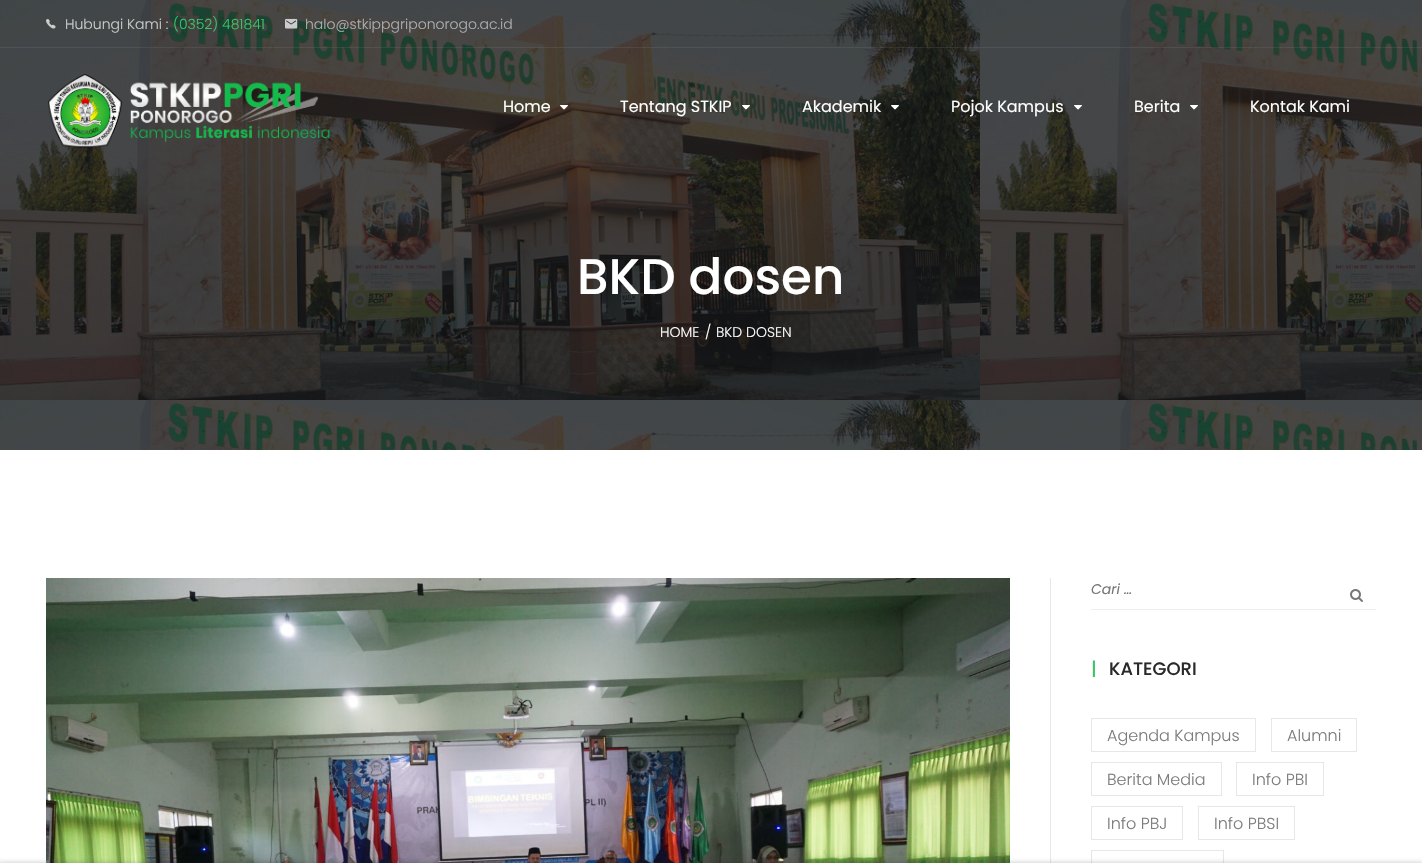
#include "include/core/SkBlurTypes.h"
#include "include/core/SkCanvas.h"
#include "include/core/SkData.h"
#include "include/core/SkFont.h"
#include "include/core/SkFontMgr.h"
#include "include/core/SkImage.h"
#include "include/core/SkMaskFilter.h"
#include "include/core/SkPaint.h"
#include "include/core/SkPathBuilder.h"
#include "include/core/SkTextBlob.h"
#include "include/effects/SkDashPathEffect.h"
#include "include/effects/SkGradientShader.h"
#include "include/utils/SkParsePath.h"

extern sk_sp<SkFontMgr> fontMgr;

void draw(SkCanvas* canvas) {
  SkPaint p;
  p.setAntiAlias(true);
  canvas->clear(SK_ColorWHITE);
  canvas->drawImageRect(SkImages::DeferredFromEncodedData(SkData::MakeFromFileName("images/9.png")), SkRect::MakeLTRB(0, 0, 1422, 450), SkSamplingOptions());
  p.setColor(SkColorSetARGB(26, 183, 183, 183));
  canvas->drawRect(SkRect::MakeLTRB(0, 47, 1422, 48), p);
  canvas->drawImageRect(SkImages::DeferredFromEncodedData(SkData::MakeFromFileName("images/1.png")), SkRect::MakeLTRB(46, 19, 56, 29), SkSamplingOptions());
  canvas->drawImageRect(SkImages::DeferredFromEncodedData(SkData::MakeFromFileName("images/2.png")), SkRect::MakeLTRB(285, 18, 298, 29), SkSamplingOptions());
  canvas->drawImageRect(SkImages::DeferredFromEncodedData(SkData::MakeFromFileName("images/3.png")), SkRect::MakeLTRB(48, 73, 331, 148), SkSamplingOptions());
  canvas->drawImageRect(SkImages::DeferredFromEncodedData(SkData::MakeFromFileName("images/4.png")), SkRect::MakeLTRB(560, 105, 568, 110), SkSamplingOptions());
  canvas->drawImageRect(SkImages::DeferredFromEncodedData(SkData::MakeFromFileName("images/5.png")), SkRect::MakeLTRB(742, 105, 750, 110), SkSamplingOptions());
  canvas->drawImageRect(SkImages::DeferredFromEncodedData(SkData::MakeFromFileName("images/6.png")), SkRect::MakeLTRB(891, 105, 899, 110), SkSamplingOptions());
  canvas->drawImageRect(SkImages::DeferredFromEncodedData(SkData::MakeFromFileName("images/7.png")), SkRect::MakeLTRB(1074, 105, 1082, 110), SkSamplingOptions());
  canvas->drawImageRect(SkImages::DeferredFromEncodedData(SkData::MakeFromFileName("images/8.png")), SkRect::MakeLTRB(1190, 105, 1198, 110), SkSamplingOptions());
  p.setColor(SkColorSetRGB(231, 231, 231));
  canvas->drawRect(SkRect::MakeLTRB(1050, 578, 1051, 863), p);
  canvas->drawImageRect(SkImages::DeferredFromEncodedData(SkData::MakeFromFileName("images/10.png")), SkRect::MakeLTRB(46, 578, 1010, 863), SkSamplingOptions());
  p.setColor(SkColorSetRGB(238, 238, 238));
  canvas->drawRect(SkRect::MakeLTRB(1091, 609, 1376, 610), p);
  canvas->drawImageRect(SkImages::DeferredFromEncodedData(SkData::MakeFromFileName("images/11.png")), SkRect::MakeLTRB(1350, 589, 1363, 602), SkSamplingOptions());
  p.setStyle(SkPaint::kStroke_Style);
  p.setStrokeWidth(1);
  p.setColor(SkColorSetRGB(231, 231, 231));
  canvas->drawRect(SkRect::MakeLTRB(1091.5f, 718.5f, 1255.5f, 751.5f), p);
  canvas->drawRect(SkRect::MakeLTRB(1271.5f, 718.5f, 1356.5f, 751.5f), p);
  canvas->drawRect(SkRect::MakeLTRB(1091.5f, 762.5f, 1221.5f, 795.5f), p);
  canvas->drawRect(SkRect::MakeLTRB(1236.5f, 762.5f, 1323.5f, 795.5f), p);
  canvas->drawRect(SkRect::MakeLTRB(1091.5f, 806.5f, 1182.5f, 839.5f), p);
  canvas->drawRect(SkRect::MakeLTRB(1198.5f, 806.5f, 1294.5f, 839.5f), p);
  canvas->drawRect(SkRect::MakeLTRB(1091.5f, 850.5f, 1223.5f, 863.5f), p);
  p.setStyle(SkPaint::kFill_Style);
  p.setColor(SkColorSetARGB(102, 42, 42, 42));
  p.setMaskFilter(SkMaskFilter::MakeBlur(kNormal_SkBlurStyle, 3));
  canvas->drawRect(SkRect::MakeLTRB(-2, 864, 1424, 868), p);
  p.setMaskFilter(nullptr);
  SkFont font1(fontMgr->matchFamilyStyle("Poppins", SkFontStyle(300, SkFontStyle::kNormal_Width, SkFontStyle::kUpright_Slant)), 14);
  font1.setSubpixel(true);
  p.setColor(SkColorSetRGB(204, 204, 204));
  canvas->drawString("Hubungi Kami :", 65, 29, font1, p);
  p.setColor(SkColorSetRGB(58, 197, 105));
  canvas->drawString("(0352) 481841", 173, 29, font1, p);
  p.setColor(SkColorSetRGB(174, 174, 174));
  canvas->drawString("halo@stkippgriponorogo.ac.id", 305, 29, font1, p);
  SkFont font2(fontMgr->matchFamilyStyle("Poppins", SkFontStyle::Normal()), 16);
  font2.setSubpixel(true);
  p.setColor(SK_ColorWHITE);
  canvas->drawString("Home", 503, 112, font2, p);
  canvas->drawString("Tentang STKIP", 620, 112, font2, p);
  canvas->drawString("Akademik", 802, 112, font2, p);
  canvas->drawString("Pojok Kampus", 951, 112, font2, p);
  canvas->drawString("Berita", 1134, 112, font2, p);
  canvas->drawString("Kontak Kami", 1250, 112, font2, p);
  SkFont font3(fontMgr->matchFamilyStyle("Poppins", SkFontStyle(500, SkFontStyle::kNormal_Width, SkFontStyle::kUpright_Slant)), 50);
  font3.setSubpixel(true);
  canvas->drawString("BKD dosen", 577, 294, font3, p);
  canvas->drawString("HOME", 660, 337, font1, p);
  canvas->drawString("/", 705, 337, font1, p);
  canvas->drawString("BKD DOSEN", 716, 337, font1, p);
  SkFont font4(fontMgr->matchFamilyStyle("Poppins", SkFontStyle::Italic()), 14);
  font4.setSubpixel(true);
  p.setColor(SkColorSetRGB(117, 117, 117));
  canvas->drawString("Cari …", 1091, 594, font4, p);
  SkFont font5(fontMgr->matchFamilyStyle("Poppins", SkFontStyle(500, SkFontStyle::kNormal_Width, SkFontStyle::kUpright_Slant)), 18);
  font5.setSubpixel(true);
  p.setColor(SkColorSetRGB(58, 197, 105));
  canvas->drawString("|", 1091, 675, font5, p);
  p.setColor(SkColorSetRGB(41, 41, 41));
  canvas->drawString("KATEGORI", 1109, 675, font5, p);
  SkFont font6(fontMgr->matchFamilyStyle("Poppins", SkFontStyle(300, SkFontStyle::kNormal_Width, SkFontStyle::kUpright_Slant)), 16);
  font6.setSubpixel(true);
  p.setColor(SkColorSetRGB(124, 124, 124));
  canvas->drawString("Agenda Kampus", 1107, 741, font6, p);
  canvas->drawString("Alumni", 1287, 741, font6, p);
  canvas->drawString("Berita Media", 1107, 785, font6, p);
  canvas->drawString("Info PBI", 1252, 785, font6, p);
  canvas->drawString("Info PBJ", 1107, 829, font6, p);
  canvas->drawString("Info PBSI", 1214, 829, font6, p);
}
